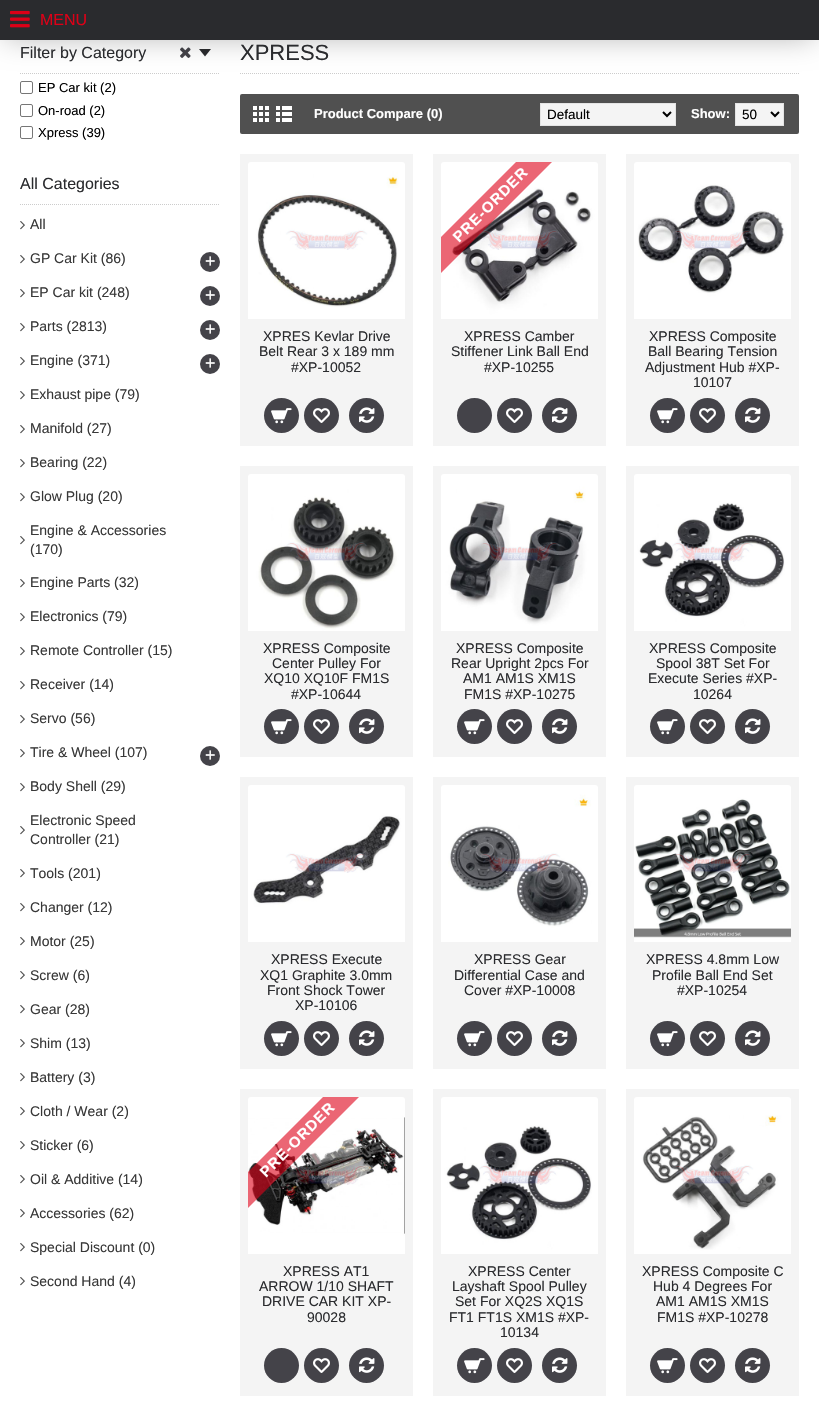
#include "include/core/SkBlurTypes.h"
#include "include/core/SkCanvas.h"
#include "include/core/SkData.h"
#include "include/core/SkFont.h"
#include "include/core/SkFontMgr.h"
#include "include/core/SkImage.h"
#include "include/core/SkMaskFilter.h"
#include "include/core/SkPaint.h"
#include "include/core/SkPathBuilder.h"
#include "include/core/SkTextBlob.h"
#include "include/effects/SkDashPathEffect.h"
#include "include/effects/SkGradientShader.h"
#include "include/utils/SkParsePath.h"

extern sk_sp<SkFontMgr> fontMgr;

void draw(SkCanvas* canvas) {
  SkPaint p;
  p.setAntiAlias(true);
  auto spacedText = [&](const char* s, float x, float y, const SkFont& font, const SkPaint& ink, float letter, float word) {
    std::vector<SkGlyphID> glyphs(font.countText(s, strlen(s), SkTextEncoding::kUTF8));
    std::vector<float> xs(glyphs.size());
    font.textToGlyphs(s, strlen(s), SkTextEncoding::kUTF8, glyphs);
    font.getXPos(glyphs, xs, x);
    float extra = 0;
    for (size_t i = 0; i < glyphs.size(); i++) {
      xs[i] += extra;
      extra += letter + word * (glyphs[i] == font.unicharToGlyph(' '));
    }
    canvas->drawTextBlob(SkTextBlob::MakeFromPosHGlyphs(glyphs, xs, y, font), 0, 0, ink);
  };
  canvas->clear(SK_ColorWHITE);
  p.setStyle(SkPaint::kStroke_Style);
  p.setStrokeWidth(1);
  p.setColor(SkColorSetRGB(204, 204, 204));
  p.setPathEffect(SkDashPathEffect::Make({{1, 1}}, 0));
  canvas->drawPath(SkPathBuilder().moveTo(20, 73.5f).lineTo(220, 73.5f).detach(), p);
  p.setPathEffect(nullptr);
  p.setStyle(SkPaint::kFill_Style);
  p.setColor(SkColorSetRGB(42, 43, 46));
  canvas->drawPath(SkPathBuilder().moveTo(211, 49).lineTo(199, 49).lineTo(205, 56.5f).close().detach(), p);
  p.setStyle(SkPaint::kStroke_Style);
  p.setColor(SkColorSetRGB(118, 118, 118));
  canvas->drawRoundRect(SkRect::MakeLTRB(20.5f, 81.5f, 32.5f, 93.5f), 1.5f, 1.5f, p);
  canvas->drawImageRect(SkImages::DeferredFromEncodedData(SkData::MakeFromFileName("images/2.png")), SkRect::MakeLTRB(180, 47, 191, 58), SkSamplingOptions());
  p.setColor(SkColorSetRGB(204, 204, 204));
  p.setPathEffect(SkDashPathEffect::Make({{1, 1}}, 0));
  canvas->drawPath(SkPathBuilder().moveTo(240, 73.5f).lineTo(799, 73.5f).detach(), p);
  p.setPathEffect(nullptr);
  p.setStyle(SkPaint::kFill_Style);
  p.setColor(SkColorSetARGB(84, 0, 0, 0));
  p.setMaskFilter(SkMaskFilter::MakeBlur(kNormal_SkBlurStyle, 15));
  canvas->drawRect(SkRect::MakeLTRB(5, 6, 814, 36), p);
  p.setMaskFilter(nullptr);
  p.setColor(SkColorSetRGB(42, 43, 46));
  canvas->drawRect(SkRect::MakeLTRB(0, 0, 819, 40), p);
  canvas->drawImageRect(SkImages::DeferredFromEncodedData(SkData::MakeFromFileName("images/1.png")), SkRect::MakeLTRB(10, 10, 30, 28), SkSamplingOptions());
  p.setStyle(SkPaint::kStroke_Style);
  p.setColor(SkColorSetRGB(118, 118, 118));
  canvas->drawRoundRect(SkRect::MakeLTRB(20.5f, 104.5f, 32.5f, 116.5f), 1.5f, 1.5f, p);
  canvas->drawRoundRect(SkRect::MakeLTRB(20.5f, 126.5f, 32.5f, 138.5f), 1.5f, 1.5f, p);
  p.setColor(SkColorSetRGB(204, 204, 204));
  p.setPathEffect(SkDashPathEffect::Make({{1, 1}}, 0));
  canvas->drawPath(SkPathBuilder().moveTo(20, 204.5f).lineTo(220, 204.5f).detach(), p);
  p.setPathEffect(nullptr);
  canvas->drawImageRect(SkImages::DeferredFromEncodedData(SkData::MakeFromFileName("images/3.png")), SkRect::MakeLTRB(20, 221, 25, 230), SkSamplingOptions());
  canvas->drawImageRect(SkImages::DeferredFromEncodedData(SkData::MakeFromFileName("images/3.png")), SkRect::MakeLTRB(20, 255, 25, 264), SkSamplingOptions());
  p.setStyle(SkPaint::kFill_Style);
  p.setColor(SkColorSetRGB(68, 67, 73));
  canvas->drawCircle(210, 262, 10, p);
  canvas->drawImageRect(SkImages::DeferredFromEncodedData(SkData::MakeFromFileName("images/3.png")), SkRect::MakeLTRB(20, 289, 25, 298), SkSamplingOptions());
  canvas->drawCircle(210, 296, 10, p);
  canvas->drawImageRect(SkImages::DeferredFromEncodedData(SkData::MakeFromFileName("images/3.png")), SkRect::MakeLTRB(20, 323, 25, 332), SkSamplingOptions());
  canvas->drawCircle(210, 330, 10, p);
  canvas->drawImageRect(SkImages::DeferredFromEncodedData(SkData::MakeFromFileName("images/3.png")), SkRect::MakeLTRB(20, 357, 25, 366), SkSamplingOptions());
  canvas->drawCircle(210, 364, 10, p);
  canvas->drawImageRect(SkImages::DeferredFromEncodedData(SkData::MakeFromFileName("images/3.png")), SkRect::MakeLTRB(20, 391, 25, 400), SkSamplingOptions());
  canvas->drawImageRect(SkImages::DeferredFromEncodedData(SkData::MakeFromFileName("images/3.png")), SkRect::MakeLTRB(20, 425, 25, 434), SkSamplingOptions());
  canvas->drawImageRect(SkImages::DeferredFromEncodedData(SkData::MakeFromFileName("images/3.png")), SkRect::MakeLTRB(20, 459, 25, 468), SkSamplingOptions());
  canvas->drawImageRect(SkImages::DeferredFromEncodedData(SkData::MakeFromFileName("images/3.png")), SkRect::MakeLTRB(20, 493, 25, 502), SkSamplingOptions());
  canvas->drawImageRect(SkImages::DeferredFromEncodedData(SkData::MakeFromFileName("images/3.png")), SkRect::MakeLTRB(20, 536, 25, 545), SkSamplingOptions());
  canvas->drawImageRect(SkImages::DeferredFromEncodedData(SkData::MakeFromFileName("images/3.png")), SkRect::MakeLTRB(20, 579, 25, 588), SkSamplingOptions());
  canvas->drawImageRect(SkImages::DeferredFromEncodedData(SkData::MakeFromFileName("images/3.png")), SkRect::MakeLTRB(20, 613, 25, 622), SkSamplingOptions());
  canvas->drawImageRect(SkImages::DeferredFromEncodedData(SkData::MakeFromFileName("images/3.png")), SkRect::MakeLTRB(20, 647, 25, 656), SkSamplingOptions());
  canvas->drawImageRect(SkImages::DeferredFromEncodedData(SkData::MakeFromFileName("images/3.png")), SkRect::MakeLTRB(20, 681, 25, 690), SkSamplingOptions());
  canvas->drawImageRect(SkImages::DeferredFromEncodedData(SkData::MakeFromFileName("images/3.png")), SkRect::MakeLTRB(20, 715, 25, 724), SkSamplingOptions());
  canvas->drawImageRect(SkImages::DeferredFromEncodedData(SkData::MakeFromFileName("images/3.png")), SkRect::MakeLTRB(20, 749, 25, 758), SkSamplingOptions());
  canvas->drawCircle(210, 756, 10, p);
  canvas->drawImageRect(SkImages::DeferredFromEncodedData(SkData::MakeFromFileName("images/3.png")), SkRect::MakeLTRB(20, 783, 25, 792), SkSamplingOptions());
  canvas->drawImageRect(SkImages::DeferredFromEncodedData(SkData::MakeFromFileName("images/3.png")), SkRect::MakeLTRB(20, 826, 25, 835), SkSamplingOptions());
  canvas->drawImageRect(SkImages::DeferredFromEncodedData(SkData::MakeFromFileName("images/3.png")), SkRect::MakeLTRB(20, 869, 25, 878), SkSamplingOptions());
  canvas->drawImageRect(SkImages::DeferredFromEncodedData(SkData::MakeFromFileName("images/3.png")), SkRect::MakeLTRB(20, 903, 25, 912), SkSamplingOptions());
  canvas->drawImageRect(SkImages::DeferredFromEncodedData(SkData::MakeFromFileName("images/3.png")), SkRect::MakeLTRB(20, 937, 25, 946), SkSamplingOptions());
  canvas->drawImageRect(SkImages::DeferredFromEncodedData(SkData::MakeFromFileName("images/3.png")), SkRect::MakeLTRB(20, 971, 25, 980), SkSamplingOptions());
  canvas->drawImageRect(SkImages::DeferredFromEncodedData(SkData::MakeFromFileName("images/3.png")), SkRect::MakeLTRB(20, 1005, 25, 1014), SkSamplingOptions());
  canvas->drawImageRect(SkImages::DeferredFromEncodedData(SkData::MakeFromFileName("images/3.png")), SkRect::MakeLTRB(20, 1039, 25, 1048), SkSamplingOptions());
  canvas->drawImageRect(SkImages::DeferredFromEncodedData(SkData::MakeFromFileName("images/3.png")), SkRect::MakeLTRB(20, 1073, 25, 1082), SkSamplingOptions());
  canvas->drawImageRect(SkImages::DeferredFromEncodedData(SkData::MakeFromFileName("images/3.png")), SkRect::MakeLTRB(20, 1107, 25, 1116), SkSamplingOptions());
  canvas->drawImageRect(SkImages::DeferredFromEncodedData(SkData::MakeFromFileName("images/3.png")), SkRect::MakeLTRB(20, 1141, 25, 1150), SkSamplingOptions());
  canvas->drawImageRect(SkImages::DeferredFromEncodedData(SkData::MakeFromFileName("images/3.png")), SkRect::MakeLTRB(20, 1175, 25, 1184), SkSamplingOptions());
  canvas->drawImageRect(SkImages::DeferredFromEncodedData(SkData::MakeFromFileName("images/3.png")), SkRect::MakeLTRB(20, 1209, 25, 1218), SkSamplingOptions());
  canvas->drawImageRect(SkImages::DeferredFromEncodedData(SkData::MakeFromFileName("images/3.png")), SkRect::MakeLTRB(20, 1243, 25, 1252), SkSamplingOptions());
  canvas->drawImageRect(SkImages::DeferredFromEncodedData(SkData::MakeFromFileName("images/3.png")), SkRect::MakeLTRB(20, 1277, 25, 1286), SkSamplingOptions());
  p.setColor(SkColorSetRGB(80, 80, 80));
  canvas->drawRoundRect(SkRect::MakeLTRB(240, 94, 799, 134), 2, 2, p);
  canvas->drawImageRect(SkImages::DeferredFromEncodedData(SkData::MakeFromFileName("images/4.png")), SkRect::MakeLTRB(253, 106, 269, 122), SkSamplingOptions());
  canvas->drawImageRect(SkImages::DeferredFromEncodedData(SkData::MakeFromFileName("images/5.png")), SkRect::MakeLTRB(276, 106, 292, 122), SkSamplingOptions());
  p.setColor(SkColorSetRGB(244, 244, 244));
  canvas->drawRect(SkRect::MakeLTRB(540.5f, 103.5f, 675.5f, 125.5f), p);
  p.setStyle(SkPaint::kStroke_Style);
  p.setColor(SkColorSetRGB(228, 228, 228));
  canvas->drawRect(SkRect::MakeLTRB(540.5f, 103.5f, 675.5f, 125.5f), p);
  p.setStrokeWidth(2);
  p.setColor(SK_ColorBLACK);
  canvas->drawPath(SkPathBuilder().moveTo(663, 112).lineTo(667, 116).lineTo(671, 112).detach(), p);
  p.setStyle(SkPaint::kFill_Style);
  p.setColor(SkColorSetRGB(244, 244, 244));
  canvas->drawRect(SkRect::MakeLTRB(735.5f, 103.5f, 783.5f, 125.5f), p);
  p.setStyle(SkPaint::kStroke_Style);
  p.setStrokeWidth(1);
  p.setColor(SkColorSetRGB(228, 228, 228));
  canvas->drawRect(SkRect::MakeLTRB(735.5f, 103.5f, 783.5f, 125.5f), p);
  p.setStrokeWidth(2);
  p.setColor(SK_ColorBLACK);
  canvas->drawPath(SkPathBuilder().moveTo(771, 112).lineTo(775, 116).lineTo(779, 112).detach(), p);
  p.setStyle(SkPaint::kFill_Style);
  p.setColor(SkColorSetRGB(244, 244, 244));
  canvas->drawRect(SkRect::MakeLTRB(240, 154, 413, 446), p);
  canvas->drawImageRect(SkImages::DeferredFromEncodedData(SkData::MakeFromFileName("images/6.png")), SkRect::MakeLTRB(248, 162, 405, 319), SkSamplingOptions());
  p.setColor(SkColorSetRGB(68, 67, 73));
  canvas->drawCircle(281.5f, 415.5f, 17.5f, p);
  canvas->drawImageRect(SkImages::DeferredFromEncodedData(SkData::MakeFromFileName("images/7.png")), SkRect::MakeLTRB(271, 408, 292, 424), SkSamplingOptions());
  canvas->drawCircle(321.5f, 415.5f, 17.5f, p);
  canvas->drawImageRect(SkImages::DeferredFromEncodedData(SkData::MakeFromFileName("images/8.png")), SkRect::MakeLTRB(313, 408, 330, 423), SkSamplingOptions());
  canvas->drawCircle(366.5f, 415.5f, 17.5f, p);
  canvas->drawImageRect(SkImages::DeferredFromEncodedData(SkData::MakeFromFileName("images/9.png")), SkRect::MakeLTRB(359, 407, 375, 423), SkSamplingOptions());
  p.setColor(SkColorSetRGB(244, 244, 244));
  canvas->drawRect(SkRect::MakeLTRB(433, 154, 606, 446), p);
  canvas->drawImageRect(SkImages::DeferredFromEncodedData(SkData::MakeFromFileName("images/10.png")), SkRect::MakeLTRB(441, 162, 598, 319), SkSamplingOptions());
  canvas->save();
  canvas->clipRect(SkRect::MakeLTRB(441, 162, 598, 319));
  p.setColor(SkColorSetARGB(153, 221, 0, 23));
  canvas->drawPath(SkPathBuilder().moveTo(405, 273).lineTo(560, 118).lineTo(578, 136).lineTo(423, 291).close().detach(), p);
  canvas->restore();
  p.setColor(SkColorSetRGB(68, 67, 73));
  canvas->drawCircle(474.5f, 415.5f, 17.5f, p);
  canvas->drawCircle(514.5f, 415.5f, 17.5f, p);
  canvas->drawImageRect(SkImages::DeferredFromEncodedData(SkData::MakeFromFileName("images/8.png")), SkRect::MakeLTRB(506, 408, 523, 423), SkSamplingOptions());
  canvas->drawCircle(559.5f, 415.5f, 17.5f, p);
  canvas->drawImageRect(SkImages::DeferredFromEncodedData(SkData::MakeFromFileName("images/9.png")), SkRect::MakeLTRB(552, 407, 568, 423), SkSamplingOptions());
  p.setColor(SkColorSetRGB(244, 244, 244));
  canvas->drawRect(SkRect::MakeLTRB(626, 154, 799, 446), p);
  canvas->drawImageRect(SkImages::DeferredFromEncodedData(SkData::MakeFromFileName("images/11.png")), SkRect::MakeLTRB(634, 162, 791, 319), SkSamplingOptions());
  p.setColor(SkColorSetRGB(68, 67, 73));
  canvas->drawCircle(667.5f, 415.5f, 17.5f, p);
  canvas->drawImageRect(SkImages::DeferredFromEncodedData(SkData::MakeFromFileName("images/7.png")), SkRect::MakeLTRB(657, 408, 678, 424), SkSamplingOptions());
  canvas->drawCircle(707.5f, 415.5f, 17.5f, p);
  canvas->drawImageRect(SkImages::DeferredFromEncodedData(SkData::MakeFromFileName("images/8.png")), SkRect::MakeLTRB(699, 408, 716, 423), SkSamplingOptions());
  canvas->drawCircle(752.5f, 415.5f, 17.5f, p);
  canvas->drawImageRect(SkImages::DeferredFromEncodedData(SkData::MakeFromFileName("images/9.png")), SkRect::MakeLTRB(745, 407, 761, 423), SkSamplingOptions());
  p.setColor(SkColorSetRGB(244, 244, 244));
  canvas->drawRect(SkRect::MakeLTRB(240, 466, 413, 757), p);
  canvas->drawImageRect(SkImages::DeferredFromEncodedData(SkData::MakeFromFileName("images/12.png")), SkRect::MakeLTRB(248, 474, 405, 631), SkSamplingOptions());
  p.setColor(SkColorSetRGB(68, 67, 73));
  canvas->drawCircle(281.5f, 726.5f, 17.5f, p);
  canvas->drawImageRect(SkImages::DeferredFromEncodedData(SkData::MakeFromFileName("images/7.png")), SkRect::MakeLTRB(271, 719, 292, 735), SkSamplingOptions());
  canvas->drawCircle(321.5f, 726.5f, 17.5f, p);
  canvas->drawImageRect(SkImages::DeferredFromEncodedData(SkData::MakeFromFileName("images/8.png")), SkRect::MakeLTRB(313, 719, 330, 734), SkSamplingOptions());
  canvas->drawCircle(366.5f, 726.5f, 17.5f, p);
  canvas->drawImageRect(SkImages::DeferredFromEncodedData(SkData::MakeFromFileName("images/9.png")), SkRect::MakeLTRB(359, 718, 375, 734), SkSamplingOptions());
  p.setColor(SkColorSetRGB(244, 244, 244));
  canvas->drawRect(SkRect::MakeLTRB(433, 466, 606, 757), p);
  canvas->drawImageRect(SkImages::DeferredFromEncodedData(SkData::MakeFromFileName("images/13.png")), SkRect::MakeLTRB(441, 474, 598, 631), SkSamplingOptions());
  p.setColor(SkColorSetRGB(68, 67, 73));
  canvas->drawCircle(474.5f, 726.5f, 17.5f, p);
  canvas->drawImageRect(SkImages::DeferredFromEncodedData(SkData::MakeFromFileName("images/7.png")), SkRect::MakeLTRB(464, 719, 485, 735), SkSamplingOptions());
  canvas->drawCircle(514.5f, 726.5f, 17.5f, p);
  canvas->drawImageRect(SkImages::DeferredFromEncodedData(SkData::MakeFromFileName("images/8.png")), SkRect::MakeLTRB(506, 719, 523, 734), SkSamplingOptions());
  canvas->drawCircle(559.5f, 726.5f, 17.5f, p);
  canvas->drawImageRect(SkImages::DeferredFromEncodedData(SkData::MakeFromFileName("images/9.png")), SkRect::MakeLTRB(552, 718, 568, 734), SkSamplingOptions());
  p.setColor(SkColorSetRGB(244, 244, 244));
  canvas->drawRect(SkRect::MakeLTRB(626, 466, 799, 757), p);
  canvas->drawImageRect(SkImages::DeferredFromEncodedData(SkData::MakeFromFileName("images/14.png")), SkRect::MakeLTRB(634, 474, 791, 631), SkSamplingOptions());
  p.setColor(SkColorSetRGB(68, 67, 73));
  canvas->drawCircle(667.5f, 726.5f, 17.5f, p);
  canvas->drawImageRect(SkImages::DeferredFromEncodedData(SkData::MakeFromFileName("images/7.png")), SkRect::MakeLTRB(657, 719, 678, 735), SkSamplingOptions());
  canvas->drawCircle(707.5f, 726.5f, 17.5f, p);
  canvas->drawImageRect(SkImages::DeferredFromEncodedData(SkData::MakeFromFileName("images/8.png")), SkRect::MakeLTRB(699, 719, 716, 734), SkSamplingOptions());
  canvas->drawCircle(752.5f, 726.5f, 17.5f, p);
  canvas->drawImageRect(SkImages::DeferredFromEncodedData(SkData::MakeFromFileName("images/9.png")), SkRect::MakeLTRB(745, 718, 761, 734), SkSamplingOptions());
  p.setColor(SkColorSetRGB(244, 244, 244));
  canvas->drawRect(SkRect::MakeLTRB(240, 777, 413, 1069), p);
  canvas->drawImageRect(SkImages::DeferredFromEncodedData(SkData::MakeFromFileName("images/15.png")), SkRect::MakeLTRB(248, 785, 405, 942), SkSamplingOptions());
  p.setColor(SkColorSetRGB(68, 67, 73));
  canvas->drawCircle(281.5f, 1038.5f, 17.5f, p);
  canvas->drawImageRect(SkImages::DeferredFromEncodedData(SkData::MakeFromFileName("images/7.png")), SkRect::MakeLTRB(271, 1031, 292, 1047), SkSamplingOptions());
  canvas->drawCircle(321.5f, 1038.5f, 17.5f, p);
  canvas->drawImageRect(SkImages::DeferredFromEncodedData(SkData::MakeFromFileName("images/8.png")), SkRect::MakeLTRB(313, 1031, 330, 1046), SkSamplingOptions());
  canvas->drawCircle(366.5f, 1038.5f, 17.5f, p);
  canvas->drawImageRect(SkImages::DeferredFromEncodedData(SkData::MakeFromFileName("images/9.png")), SkRect::MakeLTRB(359, 1030, 375, 1046), SkSamplingOptions());
  p.setColor(SkColorSetRGB(244, 244, 244));
  canvas->drawRect(SkRect::MakeLTRB(433, 777, 606, 1069), p);
  canvas->drawImageRect(SkImages::DeferredFromEncodedData(SkData::MakeFromFileName("images/16.png")), SkRect::MakeLTRB(441, 785, 598, 942), SkSamplingOptions());
  p.setColor(SkColorSetRGB(68, 67, 73));
  canvas->drawCircle(474.5f, 1038.5f, 17.5f, p);
  canvas->drawImageRect(SkImages::DeferredFromEncodedData(SkData::MakeFromFileName("images/7.png")), SkRect::MakeLTRB(464, 1031, 485, 1047), SkSamplingOptions());
  canvas->drawCircle(514.5f, 1038.5f, 17.5f, p);
  canvas->drawImageRect(SkImages::DeferredFromEncodedData(SkData::MakeFromFileName("images/8.png")), SkRect::MakeLTRB(506, 1031, 523, 1046), SkSamplingOptions());
  canvas->drawCircle(559.5f, 1038.5f, 17.5f, p);
  canvas->drawImageRect(SkImages::DeferredFromEncodedData(SkData::MakeFromFileName("images/9.png")), SkRect::MakeLTRB(552, 1030, 568, 1046), SkSamplingOptions());
  p.setColor(SkColorSetRGB(244, 244, 244));
  canvas->drawRect(SkRect::MakeLTRB(626, 777, 799, 1069), p);
  canvas->drawImageRect(SkImages::DeferredFromEncodedData(SkData::MakeFromFileName("images/17.png")), SkRect::MakeLTRB(634, 785, 791, 942), SkSamplingOptions());
  p.setColor(SkColorSetRGB(68, 67, 73));
  canvas->drawCircle(667.5f, 1038.5f, 17.5f, p);
  canvas->drawImageRect(SkImages::DeferredFromEncodedData(SkData::MakeFromFileName("images/7.png")), SkRect::MakeLTRB(657, 1031, 678, 1047), SkSamplingOptions());
  canvas->drawCircle(707.5f, 1038.5f, 17.5f, p);
  canvas->drawImageRect(SkImages::DeferredFromEncodedData(SkData::MakeFromFileName("images/8.png")), SkRect::MakeLTRB(699, 1031, 716, 1046), SkSamplingOptions());
  canvas->drawCircle(752.5f, 1038.5f, 17.5f, p);
  canvas->drawImageRect(SkImages::DeferredFromEncodedData(SkData::MakeFromFileName("images/9.png")), SkRect::MakeLTRB(745, 1030, 761, 1046), SkSamplingOptions());
  p.setColor(SkColorSetRGB(244, 244, 244));
  canvas->drawRect(SkRect::MakeLTRB(240, 1089, 413, 1396), p);
  canvas->drawImageRect(SkImages::DeferredFromEncodedData(SkData::MakeFromFileName("images/18.png")), SkRect::MakeLTRB(248, 1097, 405, 1254), SkSamplingOptions());
  canvas->save();
  canvas->clipRect(SkRect::MakeLTRB(248, 1097, 405, 1254));
  p.setColor(SkColorSetARGB(153, 221, 0, 23));
  canvas->drawPath(SkPathBuilder().moveTo(212, 1208).lineTo(367, 1053).lineTo(385, 1071).lineTo(230, 1226).close().detach(), p);
  canvas->restore();
  p.setColor(SkColorSetRGB(68, 67, 73));
  canvas->drawCircle(281.5f, 1365.5f, 17.5f, p);
  canvas->drawCircle(321.5f, 1365.5f, 17.5f, p);
  canvas->drawImageRect(SkImages::DeferredFromEncodedData(SkData::MakeFromFileName("images/8.png")), SkRect::MakeLTRB(313, 1358, 330, 1373), SkSamplingOptions());
  canvas->drawCircle(366.5f, 1365.5f, 17.5f, p);
  canvas->drawImageRect(SkImages::DeferredFromEncodedData(SkData::MakeFromFileName("images/9.png")), SkRect::MakeLTRB(359, 1357, 375, 1373), SkSamplingOptions());
  p.setColor(SkColorSetRGB(244, 244, 244));
  canvas->drawRect(SkRect::MakeLTRB(433, 1089, 606, 1396), p);
  canvas->drawImageRect(SkImages::DeferredFromEncodedData(SkData::MakeFromFileName("images/19.png")), SkRect::MakeLTRB(441, 1097, 598, 1254), SkSamplingOptions());
  p.setColor(SkColorSetRGB(68, 67, 73));
  canvas->drawCircle(474.5f, 1365.5f, 17.5f, p);
  canvas->drawImageRect(SkImages::DeferredFromEncodedData(SkData::MakeFromFileName("images/7.png")), SkRect::MakeLTRB(464, 1358, 485, 1374), SkSamplingOptions());
  canvas->drawCircle(514.5f, 1365.5f, 17.5f, p);
  canvas->drawImageRect(SkImages::DeferredFromEncodedData(SkData::MakeFromFileName("images/8.png")), SkRect::MakeLTRB(506, 1358, 523, 1373), SkSamplingOptions());
  canvas->drawCircle(559.5f, 1365.5f, 17.5f, p);
  canvas->drawImageRect(SkImages::DeferredFromEncodedData(SkData::MakeFromFileName("images/9.png")), SkRect::MakeLTRB(552, 1357, 568, 1373), SkSamplingOptions());
  p.setColor(SkColorSetRGB(244, 244, 244));
  canvas->drawRect(SkRect::MakeLTRB(626, 1089, 799, 1396), p);
  canvas->drawImageRect(SkImages::DeferredFromEncodedData(SkData::MakeFromFileName("images/20.png")), SkRect::MakeLTRB(634, 1097, 791, 1254), SkSamplingOptions());
  p.setColor(SkColorSetRGB(68, 67, 73));
  canvas->drawCircle(667.5f, 1365.5f, 17.5f, p);
  canvas->drawImageRect(SkImages::DeferredFromEncodedData(SkData::MakeFromFileName("images/7.png")), SkRect::MakeLTRB(657, 1358, 678, 1374), SkSamplingOptions());
  canvas->drawCircle(707.5f, 1365.5f, 17.5f, p);
  canvas->drawImageRect(SkImages::DeferredFromEncodedData(SkData::MakeFromFileName("images/8.png")), SkRect::MakeLTRB(699, 1358, 716, 1373), SkSamplingOptions());
  canvas->drawCircle(752.5f, 1365.5f, 17.5f, p);
  canvas->drawImageRect(SkImages::DeferredFromEncodedData(SkData::MakeFromFileName("images/9.png")), SkRect::MakeLTRB(745, 1357, 761, 1373), SkSamplingOptions());
  SkFont font1(fontMgr->matchFamilyStyle("Liberation Sans", SkFontStyle::Normal()), 16);
  font1.setSubpixel(true);
  p.setColor(SkColorSetRGB(221, 0, 23));
  canvas->drawString("MENU", 40, 25, font1, p);
  p.setColor(SkColorSetRGB(42, 43, 46));
  canvas->drawString("Filter by Category", 20, 58, font1, p);
  SkFont font2(fontMgr->matchFamilyStyle("Liberation Sans", SkFontStyle::Normal()), 13);
  font2.setSubpixel(true);
  p.setColor(SK_ColorBLACK);
  canvas->drawString("EP Car kit (2)", 38, 92, font2, p);
  canvas->drawString("On-road (2)", 38, 115, font2, p);
  canvas->drawString("Xpress (39)", 38, 137, font2, p);
  p.setColor(SkColorSetRGB(42, 43, 46));
  canvas->drawString("All Categories", 20, 189, font1, p);
  SkFont font3(fontMgr->matchFamilyStyle("Liberation Sans", SkFontStyle::Normal()), 14);
  font3.setSubpixel(true);
  p.setColor(SkColorSetRGB(56, 56, 56));
  canvas->drawString("All", 30, 229, font3, p);
  canvas->drawString("GP Car Kit (86)", 30, 263, font3, p);
  SkFont font4(fontMgr->matchFamilyStyle("Liberation Sans", SkFontStyle::Normal()), 18);
  font4.setSubpixel(true);
  p.setColor(SK_ColorWHITE);
  canvas->drawString("+", 205, 267, font4, p);
  p.setColor(SkColorSetRGB(56, 56, 56));
  canvas->drawString("EP Car kit (248)", 30, 297, font3, p);
  p.setColor(SK_ColorWHITE);
  canvas->drawString("+", 205, 301, font4, p);
  p.setColor(SkColorSetRGB(56, 56, 56));
  canvas->drawString("Parts (2813)", 30, 331, font3, p);
  p.setColor(SK_ColorWHITE);
  canvas->drawString("+", 205, 335, font4, p);
  p.setColor(SkColorSetRGB(56, 56, 56));
  canvas->drawString("Engine (371)", 30, 365, font3, p);
  p.setColor(SK_ColorWHITE);
  canvas->drawString("+", 205, 369, font4, p);
  p.setColor(SkColorSetRGB(56, 56, 56));
  canvas->drawString("Exhaust pipe (79)", 30, 399, font3, p);
  canvas->drawString("Manifold (27)", 30, 433, font3, p);
  canvas->drawString("Bearing (22)", 30, 467, font3, p);
  canvas->drawString("Glow Plug (20)", 30, 501, font3, p);
  canvas->drawString("Engine & Accessories", 30, 535, font3, p);
  canvas->drawString("(170)", 30, 554, font3, p);
  canvas->drawString("Engine Parts (32)", 30, 587, font3, p);
  canvas->drawString("Electronics (79)", 30, 621, font3, p);
  canvas->drawString("Remote Controller (15)", 30, 655, font3, p);
  canvas->drawString("Receiver (14)", 30, 689, font3, p);
  canvas->drawString("Servo (56)", 30, 723, font3, p);
  canvas->drawString("Tire & Wheel (107)", 30, 757, font3, p);
  p.setColor(SK_ColorWHITE);
  canvas->drawString("+", 205, 761, font4, p);
  p.setColor(SkColorSetRGB(56, 56, 56));
  canvas->drawString("Body Shell (29)", 30, 791, font3, p);
  canvas->drawString("Electronic Speed", 30, 825, font3, p);
  canvas->drawString("Controller (21)", 30, 844, font3, p);
  canvas->drawString("Tools (201)", 30, 878, font3, p);
  canvas->drawString("Changer (12)", 30, 912, font3, p);
  canvas->drawString("Motor (25)", 30, 946, font3, p);
  canvas->drawString("Screw (6)", 30, 980, font3, p);
  canvas->drawString("Gear (28)", 30, 1014, font3, p);
  canvas->drawString("Shim (13)", 30, 1048, font3, p);
  canvas->drawString("Battery (3)", 30, 1082, font3, p);
  canvas->drawString("Cloth / Wear (2)", 30, 1116, font3, p);
  canvas->drawString("Sticker (6)", 30, 1150, font3, p);
  canvas->drawString("Oil & Additive (14)", 30, 1184, font3, p);
  canvas->drawString("Accessories (62)", 30, 1218, font3, p);
  canvas->drawString("Special Discount (0)", 30, 1252, font3, p);
  canvas->drawString("Second Hand (4)", 30, 1286, font3, p);
  SkFont font5(fontMgr->matchFamilyStyle("Liberation Sans", SkFontStyle::Normal()), 22);
  font5.setSubpixel(true);
  p.setColor(SkColorSetRGB(42, 43, 46));
  canvas->drawString("XPRESS", 240, 60, font5, p);
  SkFont font6(fontMgr->matchFamilyStyle("Liberation Sans", SkFontStyle::Bold()), 13);
  font6.setSubpixel(true);
  p.setColor(SK_ColorWHITE);
  canvas->drawString("Product Compare (0)", 314, 118, font6, p);
  SkFont font7(fontMgr->matchFamilyStyle("Liberation Sans", SkFontStyle::Normal()), 13.5f);
  font7.setSubpixel(true);
  p.setColor(SK_ColorBLACK);
  canvas->drawString("Default", 547, 119, font7, p);
  p.setColor(SK_ColorWHITE);
  canvas->drawString("Show:", 691, 118, font6, p);
  p.setColor(SK_ColorBLACK);
  canvas->drawString("50", 742, 119, font7, p);
  p.setColor(SkColorSetRGB(42, 43, 46));
  canvas->drawString("XPRES Kevlar Drive", 263, 341, font3, p);
  canvas->drawString("Belt Rear 3 x 189 mm", 259, 356, font3, p);
  canvas->drawString("#XP-10052", 291, 372, font3, p);
  SkFont font8(fontMgr->matchFamilyStyle("Liberation Sans", SkFontStyle::Bold()), 15);
  font8.setSubpixel(true);
  p.setColor(SK_ColorWHITE);
  canvas->save();
  canvas->rotate(-45, 459, 243);
  spacedText("PRE-ORDER", 459, 243, font8, p, 1, 0);
  canvas->restore();
  p.setColor(SkColorSetRGB(42, 43, 46));
  canvas->drawString("XPRESS Camber", 464, 341, font3, p);
  canvas->drawString("Stiffener Link Ball End", 451, 356, font3, p);
  canvas->drawString("#XP-10255", 484, 372, font3, p);
  canvas->drawString("XPRESS Composite", 649, 341, font3, p);
  canvas->drawString("Ball Bearing Tension", 648, 356, font3, p);
  canvas->drawString("Adjustment Hub #XP-", 645, 372, font3, p);
  canvas->drawString("10107", 693, 387, font3, p);
  canvas->drawString("XPRESS Composite", 263, 653, font3, p);
  canvas->drawString("Center Pulley For", 272, 668, font3, p);
  canvas->drawString("XQ10 XQ10F FM1S", 264, 683, font3, p);
  canvas->drawString("#XP-10644", 291, 699, font3, p);
  canvas->drawString("XPRESS Composite", 456, 653, font3, p);
  canvas->drawString("Rear Upright 2pcs For", 451, 668, font3, p);
  canvas->drawString("AM1 AM1S XM1S", 463, 683, font3, p);
  canvas->drawString("FM1S #XP-10275", 464, 699, font3, p);
  canvas->drawString("XPRESS Composite", 649, 653, font3, p);
  canvas->drawString("Spool 38T Set For", 656, 668, font3, p);
  canvas->drawString("Execute Series #XP-", 648, 683, font3, p);
  canvas->drawString("10264", 693, 699, font3, p);
  canvas->drawString("XPRESS Execute", 271, 964, font3, p);
  canvas->drawString("XQ1 Graphite 3.0mm", 260, 980, font3, p);
  canvas->drawString("Front Shock Tower", 267, 995, font3, p);
  canvas->drawString("XP-10106", 295, 1010, font3, p);
  canvas->drawString("XPRESS Gear", 474, 964, font3, p);
  canvas->drawString("Differential Case and", 454, 980, font3, p);
  canvas->drawString("Cover #XP-10008", 464, 995, font3, p);
  canvas->drawString("XPRESS 4.8mm Low", 646, 964, font3, p);
  canvas->drawString("Profile Ball End Set", 652, 980, font3, p);
  canvas->drawString("#XP-10254", 677, 995, font3, p);
  p.setColor(SK_ColorWHITE);
  canvas->save();
  canvas->rotate(-45, 266, 1178);
  spacedText("PRE-ORDER", 266, 1178, font8, p, 1, 0);
  canvas->restore();
  p.setColor(SkColorSetRGB(42, 43, 46));
  canvas->drawString("XPRESS AT1", 283, 1276, font3, p);
  canvas->drawString("ARROW 1/10 SHAFT", 259, 1291, font3, p);
  canvas->drawString("DRIVE CAR KIT XP-", 262, 1306, font3, p);
  canvas->drawString("90028", 307, 1322, font3, p);
  canvas->drawString("XPRESS Center", 468, 1276, font3, p);
  canvas->drawString("Layshaft Spool Pulley", 452, 1291, font3, p);
  canvas->drawString("Set For XQ2S XQ1S", 455, 1306, font3, p);
  canvas->drawString("FT1 FT1S XM1S #XP-", 449, 1322, font3, p);
  canvas->drawString("10134", 500, 1337, font3, p);
  canvas->drawString("XPRESS Composite C", 642, 1276, font3, p);
  canvas->drawString("Hub 4 Degrees For", 653, 1291, font3, p);
  canvas->drawString("AM1 AM1S XM1S", 656, 1306, font3, p);
  canvas->drawString("FM1S #XP-10278", 657, 1322, font3, p);
}
